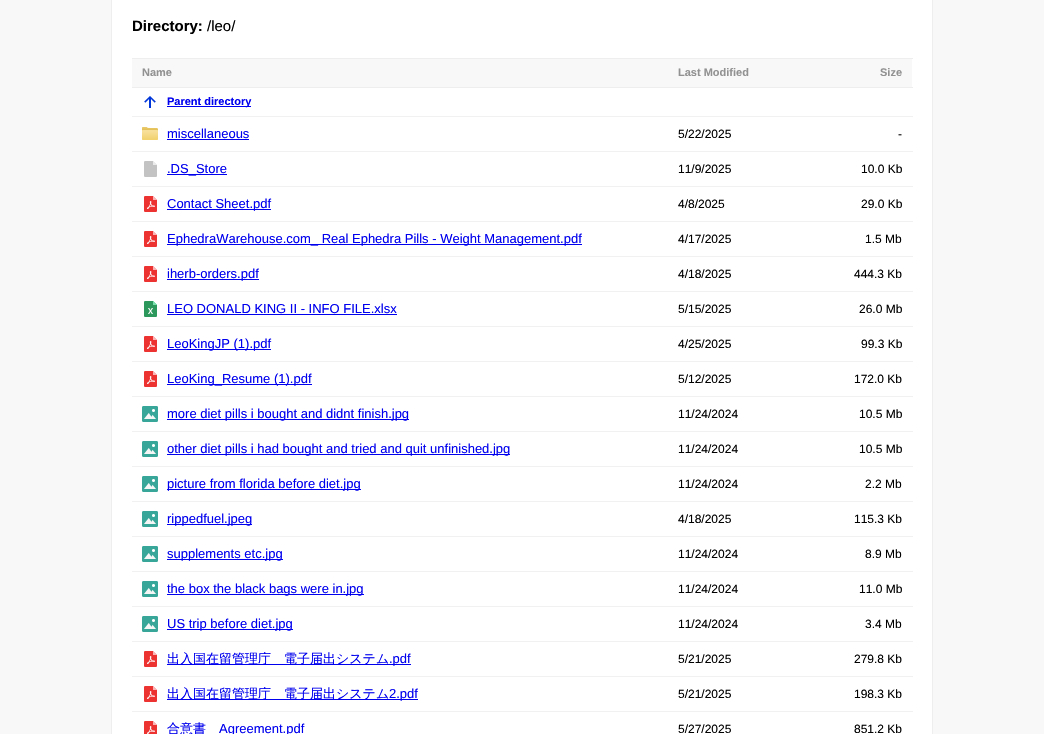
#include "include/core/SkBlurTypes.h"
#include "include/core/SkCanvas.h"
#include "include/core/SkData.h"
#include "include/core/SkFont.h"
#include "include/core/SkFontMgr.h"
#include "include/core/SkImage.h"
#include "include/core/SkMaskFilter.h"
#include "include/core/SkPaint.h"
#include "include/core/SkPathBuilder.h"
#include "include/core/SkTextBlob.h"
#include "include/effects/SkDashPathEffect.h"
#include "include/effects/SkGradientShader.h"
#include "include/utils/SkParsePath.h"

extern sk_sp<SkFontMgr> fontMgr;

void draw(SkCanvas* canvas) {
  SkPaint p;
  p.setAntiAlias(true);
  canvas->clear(SkColorSetRGB(248, 248, 248));
  p.setColor(SK_ColorWHITE);
  canvas->drawRect(SkRect::MakeLTRB(112, 0, 932, 734), p);
  p.setColor(SkColorSetRGB(238, 238, 238));
  canvas->drawRect(SkRect::MakeLTRB(932, 0, 933, 734), p);
  canvas->drawRect(SkRect::MakeLTRB(111, 0, 112, 734), p);
  p.setColor(SkColorSetRGB(248, 248, 248));
  canvas->drawRect(SkRect::MakeLTRB(132, 59, 912, 87), p);
  p.setColor(SkColorSetRGB(238, 238, 238));
  canvas->drawRect(SkRect::MakeLTRB(132, 58, 913, 59), p);
  canvas->drawRect(SkRect::MakeLTRB(132, 87, 913, 88), p);
  canvas->drawImageRect(SkImages::DeferredFromEncodedData(SkData::MakeFromFileName("images/1.png")), SkRect::MakeLTRB(144, 96, 156, 108), SkSamplingOptions());
  p.setColor(SkColorSetRGB(0, 0, 238));
  canvas->drawRect(SkRect::MakeLTRB(167, 106, 251, 107), p);
  p.setColor(SkColorSetRGB(241, 241, 241));
  canvas->drawRect(SkRect::MakeLTRB(132, 116, 913, 117), p);
  canvas->drawImageRect(SkImages::DeferredFromEncodedData(SkData::MakeFromFileName("images/2.png")), SkRect::MakeLTRB(142, 127, 158, 140), SkSamplingOptions());
  p.setColor(SkColorSetRGB(0, 0, 238));
  canvas->drawRect(SkRect::MakeLTRB(167, 139, 249, 140), p);
  p.setColor(SkColorSetRGB(241, 241, 241));
  canvas->drawRect(SkRect::MakeLTRB(132, 151, 913, 152), p);
  canvas->drawImageRect(SkImages::DeferredFromEncodedData(SkData::MakeFromFileName("images/3.png")), SkRect::MakeLTRB(144, 161, 157, 177), SkSamplingOptions());
  p.setColor(SkColorSetRGB(0, 0, 238));
  canvas->drawRect(SkRect::MakeLTRB(167, 174, 227, 175), p);
  p.setColor(SkColorSetRGB(241, 241, 241));
  canvas->drawRect(SkRect::MakeLTRB(132, 186, 913, 187), p);
  canvas->drawImageRect(SkImages::DeferredFromEncodedData(SkData::MakeFromFileName("images/4.png")), SkRect::MakeLTRB(144, 196, 157, 212), SkSamplingOptions());
  p.setColor(SkColorSetRGB(0, 0, 238));
  canvas->drawRect(SkRect::MakeLTRB(167, 209, 271, 210), p);
  p.setColor(SkColorSetRGB(241, 241, 241));
  canvas->drawRect(SkRect::MakeLTRB(132, 221, 913, 222), p);
  canvas->drawImageRect(SkImages::DeferredFromEncodedData(SkData::MakeFromFileName("images/4.png")), SkRect::MakeLTRB(144, 231, 157, 247), SkSamplingOptions());
  p.setColor(SkColorSetRGB(0, 0, 238));
  canvas->drawRect(SkRect::MakeLTRB(167, 244, 582, 245), p);
  p.setColor(SkColorSetRGB(241, 241, 241));
  canvas->drawRect(SkRect::MakeLTRB(132, 256, 913, 257), p);
  canvas->drawImageRect(SkImages::DeferredFromEncodedData(SkData::MakeFromFileName("images/4.png")), SkRect::MakeLTRB(144, 266, 157, 282), SkSamplingOptions());
  p.setColor(SkColorSetRGB(0, 0, 238));
  canvas->drawRect(SkRect::MakeLTRB(167, 279, 259, 280), p);
  p.setColor(SkColorSetRGB(241, 241, 241));
  canvas->drawRect(SkRect::MakeLTRB(132, 291, 913, 292), p);
  canvas->drawImageRect(SkImages::DeferredFromEncodedData(SkData::MakeFromFileName("images/5.png")), SkRect::MakeLTRB(144, 301, 157, 317), SkSamplingOptions());
  p.setColor(SkColorSetRGB(0, 0, 238));
  canvas->drawRect(SkRect::MakeLTRB(167, 314, 397, 315), p);
  p.setColor(SkColorSetRGB(241, 241, 241));
  canvas->drawRect(SkRect::MakeLTRB(132, 326, 913, 327), p);
  canvas->drawImageRect(SkImages::DeferredFromEncodedData(SkData::MakeFromFileName("images/4.png")), SkRect::MakeLTRB(144, 336, 157, 352), SkSamplingOptions());
  p.setColor(SkColorSetRGB(0, 0, 238));
  canvas->drawRect(SkRect::MakeLTRB(167, 349, 271, 350), p);
  p.setColor(SkColorSetRGB(241, 241, 241));
  canvas->drawRect(SkRect::MakeLTRB(132, 361, 913, 362), p);
  canvas->drawImageRect(SkImages::DeferredFromEncodedData(SkData::MakeFromFileName("images/4.png")), SkRect::MakeLTRB(144, 371, 157, 387), SkSamplingOptions());
  p.setColor(SkColorSetRGB(0, 0, 238));
  canvas->drawRect(SkRect::MakeLTRB(167, 384, 312, 385), p);
  p.setColor(SkColorSetRGB(241, 241, 241));
  canvas->drawRect(SkRect::MakeLTRB(132, 396, 913, 397), p);
  canvas->drawImageRect(SkImages::DeferredFromEncodedData(SkData::MakeFromFileName("images/6.png")), SkRect::MakeLTRB(142, 406, 158, 422), SkSamplingOptions());
  p.setColor(SkColorSetRGB(0, 0, 238));
  canvas->drawRect(SkRect::MakeLTRB(167, 419, 409, 420), p);
  p.setColor(SkColorSetRGB(241, 241, 241));
  canvas->drawRect(SkRect::MakeLTRB(132, 431, 913, 432), p);
  canvas->drawImageRect(SkImages::DeferredFromEncodedData(SkData::MakeFromFileName("images/6.png")), SkRect::MakeLTRB(142, 441, 158, 457), SkSamplingOptions());
  p.setColor(SkColorSetRGB(0, 0, 238));
  canvas->drawRect(SkRect::MakeLTRB(167, 454, 510, 455), p);
  p.setColor(SkColorSetRGB(241, 241, 241));
  canvas->drawRect(SkRect::MakeLTRB(132, 466, 913, 467), p);
  canvas->drawImageRect(SkImages::DeferredFromEncodedData(SkData::MakeFromFileName("images/6.png")), SkRect::MakeLTRB(142, 476, 158, 492), SkSamplingOptions());
  p.setColor(SkColorSetRGB(0, 0, 238));
  canvas->drawRect(SkRect::MakeLTRB(167, 489, 361, 490), p);
  p.setColor(SkColorSetRGB(241, 241, 241));
  canvas->drawRect(SkRect::MakeLTRB(132, 501, 913, 502), p);
  canvas->drawImageRect(SkImages::DeferredFromEncodedData(SkData::MakeFromFileName("images/6.png")), SkRect::MakeLTRB(142, 511, 158, 527), SkSamplingOptions());
  p.setColor(SkColorSetRGB(0, 0, 238));
  canvas->drawRect(SkRect::MakeLTRB(167, 524, 252, 525), p);
  p.setColor(SkColorSetRGB(241, 241, 241));
  canvas->drawRect(SkRect::MakeLTRB(132, 536, 913, 537), p);
  canvas->drawImageRect(SkImages::DeferredFromEncodedData(SkData::MakeFromFileName("images/6.png")), SkRect::MakeLTRB(142, 546, 158, 562), SkSamplingOptions());
  p.setColor(SkColorSetRGB(0, 0, 238));
  canvas->drawRect(SkRect::MakeLTRB(167, 559, 283, 560), p);
  p.setColor(SkColorSetRGB(241, 241, 241));
  canvas->drawRect(SkRect::MakeLTRB(132, 571, 913, 572), p);
  canvas->drawImageRect(SkImages::DeferredFromEncodedData(SkData::MakeFromFileName("images/6.png")), SkRect::MakeLTRB(142, 581, 158, 597), SkSamplingOptions());
  p.setColor(SkColorSetRGB(0, 0, 238));
  canvas->drawRect(SkRect::MakeLTRB(167, 594, 364, 595), p);
  p.setColor(SkColorSetRGB(241, 241, 241));
  canvas->drawRect(SkRect::MakeLTRB(132, 606, 913, 607), p);
  canvas->drawImageRect(SkImages::DeferredFromEncodedData(SkData::MakeFromFileName("images/6.png")), SkRect::MakeLTRB(142, 616, 158, 632), SkSamplingOptions());
  p.setColor(SkColorSetRGB(0, 0, 238));
  canvas->drawRect(SkRect::MakeLTRB(167, 629, 293, 630), p);
  p.setColor(SkColorSetRGB(241, 241, 241));
  canvas->drawRect(SkRect::MakeLTRB(132, 641, 913, 642), p);
  canvas->drawImageRect(SkImages::DeferredFromEncodedData(SkData::MakeFromFileName("images/4.png")), SkRect::MakeLTRB(144, 651, 157, 667), SkSamplingOptions());
  p.setColor(SkColorSetRGB(0, 0, 238));
  canvas->drawRect(SkRect::MakeLTRB(167, 664, 411, 665), p);
  p.setColor(SkColorSetRGB(241, 241, 241));
  canvas->drawRect(SkRect::MakeLTRB(132, 676, 913, 677), p);
  canvas->drawImageRect(SkImages::DeferredFromEncodedData(SkData::MakeFromFileName("images/4.png")), SkRect::MakeLTRB(144, 686, 157, 702), SkSamplingOptions());
  p.setColor(SkColorSetRGB(0, 0, 238));
  canvas->drawRect(SkRect::MakeLTRB(167, 699, 418, 700), p);
  p.setColor(SkColorSetRGB(241, 241, 241));
  canvas->drawRect(SkRect::MakeLTRB(132, 711, 913, 712), p);
  canvas->drawImageRect(SkImages::DeferredFromEncodedData(SkData::MakeFromFileName("images/7.png")), SkRect::MakeLTRB(144, 721, 157, 734), SkSamplingOptions());
  SkFont font1(fontMgr->matchFamilyStyle("Liberation Sans", SkFontStyle::Bold()), 15);
  font1.setSubpixel(true);
  p.setColor(SK_ColorBLACK);
  canvas->drawString("Directory:", 132, 31, font1, p);
  SkFont font2(fontMgr->matchFamilyStyle("Liberation Sans", SkFontStyle::Normal()), 15);
  font2.setSubpixel(true);
  canvas->drawString("/leo/", 207, 31, font2, p);
  SkFont font3(fontMgr->matchFamilyStyle("Liberation Sans", SkFontStyle::Bold()), 11);
  font3.setSubpixel(true);
  p.setColor(SkColorSetRGB(146, 146, 146));
  canvas->drawString("Name", 142, 76, font3, p);
  canvas->drawString("Last Modified", 678, 76, font3, p);
  canvas->drawString("Size", 880, 76, font3, p);
  p.setColor(SkColorSetRGB(0, 0, 238));
  canvas->drawString("Parent directory", 167, 105, font3, p);
  SkFont font4(fontMgr->matchFamilyStyle("Liberation Sans", SkFontStyle::Normal()), 13);
  font4.setSubpixel(true);
  canvas->drawString("miscellaneous", 167, 138, font4, p);
  SkFont font5(fontMgr->matchFamilyStyle("Liberation Sans", SkFontStyle::Normal()), 12);
  font5.setSubpixel(true);
  p.setColor(SK_ColorBLACK);
  canvas->drawString("5/22/2025", 678, 138, font5, p);
  canvas->drawString("-", 898, 138, font5, p);
  p.setColor(SkColorSetRGB(0, 0, 238));
  canvas->drawString(".DS_Store", 167, 173, font4, p);
  p.setColor(SK_ColorBLACK);
  canvas->drawString("11/9/2025", 678, 173, font5, p);
  canvas->drawString("10.0 Kb", 861, 173, font5, p);
  p.setColor(SkColorSetRGB(0, 0, 238));
  canvas->drawString("Contact Sheet.pdf", 167, 208, font4, p);
  p.setColor(SK_ColorBLACK);
  canvas->drawString("4/8/2025", 678, 208, font5, p);
  canvas->drawString("29.0 Kb", 861, 208, font5, p);
  p.setColor(SkColorSetRGB(0, 0, 238));
  canvas->drawString("EphedraWarehouse.com_ Real Ephedra Pills - Weight Management.pdf", 167, 243, font4, p);
  p.setColor(SK_ColorBLACK);
  canvas->drawString("4/17/2025", 678, 243, font5, p);
  canvas->drawString("1.5 Mb", 865, 243, font5, p);
  p.setColor(SkColorSetRGB(0, 0, 238));
  canvas->drawString("iherb-orders.pdf", 167, 278, font4, p);
  p.setColor(SK_ColorBLACK);
  canvas->drawString("4/18/2025", 678, 278, font5, p);
  canvas->drawString("444.3 Kb", 854, 278, font5, p);
  p.setColor(SkColorSetRGB(0, 0, 238));
  canvas->drawString("LEO DONALD KING II - INFO FILE.xlsx", 167, 313, font4, p);
  p.setColor(SK_ColorBLACK);
  canvas->drawString("5/15/2025", 678, 313, font5, p);
  canvas->drawString("26.0 Mb", 859, 313, font5, p);
  p.setColor(SkColorSetRGB(0, 0, 238));
  canvas->drawString("LeoKingJP (1).pdf", 167, 348, font4, p);
  p.setColor(SK_ColorBLACK);
  canvas->drawString("4/25/2025", 678, 348, font5, p);
  canvas->drawString("99.3 Kb", 861, 348, font5, p);
  p.setColor(SkColorSetRGB(0, 0, 238));
  canvas->drawString("LeoKing_Resume (1).pdf", 167, 383, font4, p);
  p.setColor(SK_ColorBLACK);
  canvas->drawString("5/12/2025", 678, 383, font5, p);
  canvas->drawString("172.0 Kb", 854, 383, font5, p);
  p.setColor(SkColorSetRGB(0, 0, 238));
  canvas->drawString("more diet pills i bought and didnt finish.jpg", 167, 418, font4, p);
  p.setColor(SK_ColorBLACK);
  canvas->drawString("11/24/2024", 678, 418, font5, p);
  canvas->drawString("10.5 Mb", 859, 418, font5, p);
  p.setColor(SkColorSetRGB(0, 0, 238));
  canvas->drawString("other diet pills i had bought and tried and quit unfinished.jpg", 167, 453, font4, p);
  p.setColor(SK_ColorBLACK);
  canvas->drawString("11/24/2024", 678, 453, font5, p);
  canvas->drawString("10.5 Mb", 859, 453, font5, p);
  p.setColor(SkColorSetRGB(0, 0, 238));
  canvas->drawString("picture from florida before diet.jpg", 167, 488, font4, p);
  p.setColor(SK_ColorBLACK);
  canvas->drawString("11/24/2024", 678, 488, font5, p);
  canvas->drawString("2.2 Mb", 865, 488, font5, p);
  p.setColor(SkColorSetRGB(0, 0, 238));
  canvas->drawString("rippedfuel.jpeg", 167, 523, font4, p);
  p.setColor(SK_ColorBLACK);
  canvas->drawString("4/18/2025", 678, 523, font5, p);
  canvas->drawString("115.3 Kb", 854, 523, font5, p);
  p.setColor(SkColorSetRGB(0, 0, 238));
  canvas->drawString("supplements etc.jpg", 167, 558, font4, p);
  p.setColor(SK_ColorBLACK);
  canvas->drawString("11/24/2024", 678, 558, font5, p);
  canvas->drawString("8.9 Mb", 865, 558, font5, p);
  p.setColor(SkColorSetRGB(0, 0, 238));
  canvas->drawString("the box the black bags were in.jpg", 167, 593, font4, p);
  p.setColor(SK_ColorBLACK);
  canvas->drawString("11/24/2024", 678, 593, font5, p);
  canvas->drawString("11.0 Mb", 859, 593, font5, p);
  p.setColor(SkColorSetRGB(0, 0, 238));
  canvas->drawString("US trip before diet.jpg", 167, 628, font4, p);
  p.setColor(SK_ColorBLACK);
  canvas->drawString("11/24/2024", 678, 628, font5, p);
  canvas->drawString("3.4 Mb", 865, 628, font5, p);
  SkFont font6(fontMgr->matchFamilyStyle("WenQuanYi Zen Hei", SkFontStyle(500, SkFontStyle::kNormal_Width, SkFontStyle::kUpright_Slant)), 13);
  font6.setSubpixel(true);
  p.setColor(SkColorSetRGB(0, 0, 238));
  canvas->drawString("出入国在留管理庁　電子届出システム", 167, 663, font6, p);
  canvas->drawString(".pdf", 389, 663, font4, p);
  p.setColor(SK_ColorBLACK);
  canvas->drawString("5/21/2025", 678, 663, font5, p);
  canvas->drawString("279.8 Kb", 854, 663, font5, p);
  p.setColor(SkColorSetRGB(0, 0, 238));
  canvas->drawString("出入国在留管理庁　電子届出システム", 167, 698, font6, p);
  canvas->drawString("2.pdf", 389, 698, font4, p);
  p.setColor(SK_ColorBLACK);
  canvas->drawString("5/21/2025", 678, 698, font5, p);
  canvas->drawString("198.3 Kb", 854, 698, font5, p);
  p.setColor(SkColorSetRGB(0, 0, 238));
  canvas->drawString("合意書", 167, 733, font6, p);
  canvas->drawString("Agreement.pdf", 219, 733, font4, p);
  p.setColor(SK_ColorBLACK);
  canvas->drawString("5/27/2025", 678, 733, font5, p);
  canvas->drawString("851.2 Kb", 854, 733, font5, p);
}
